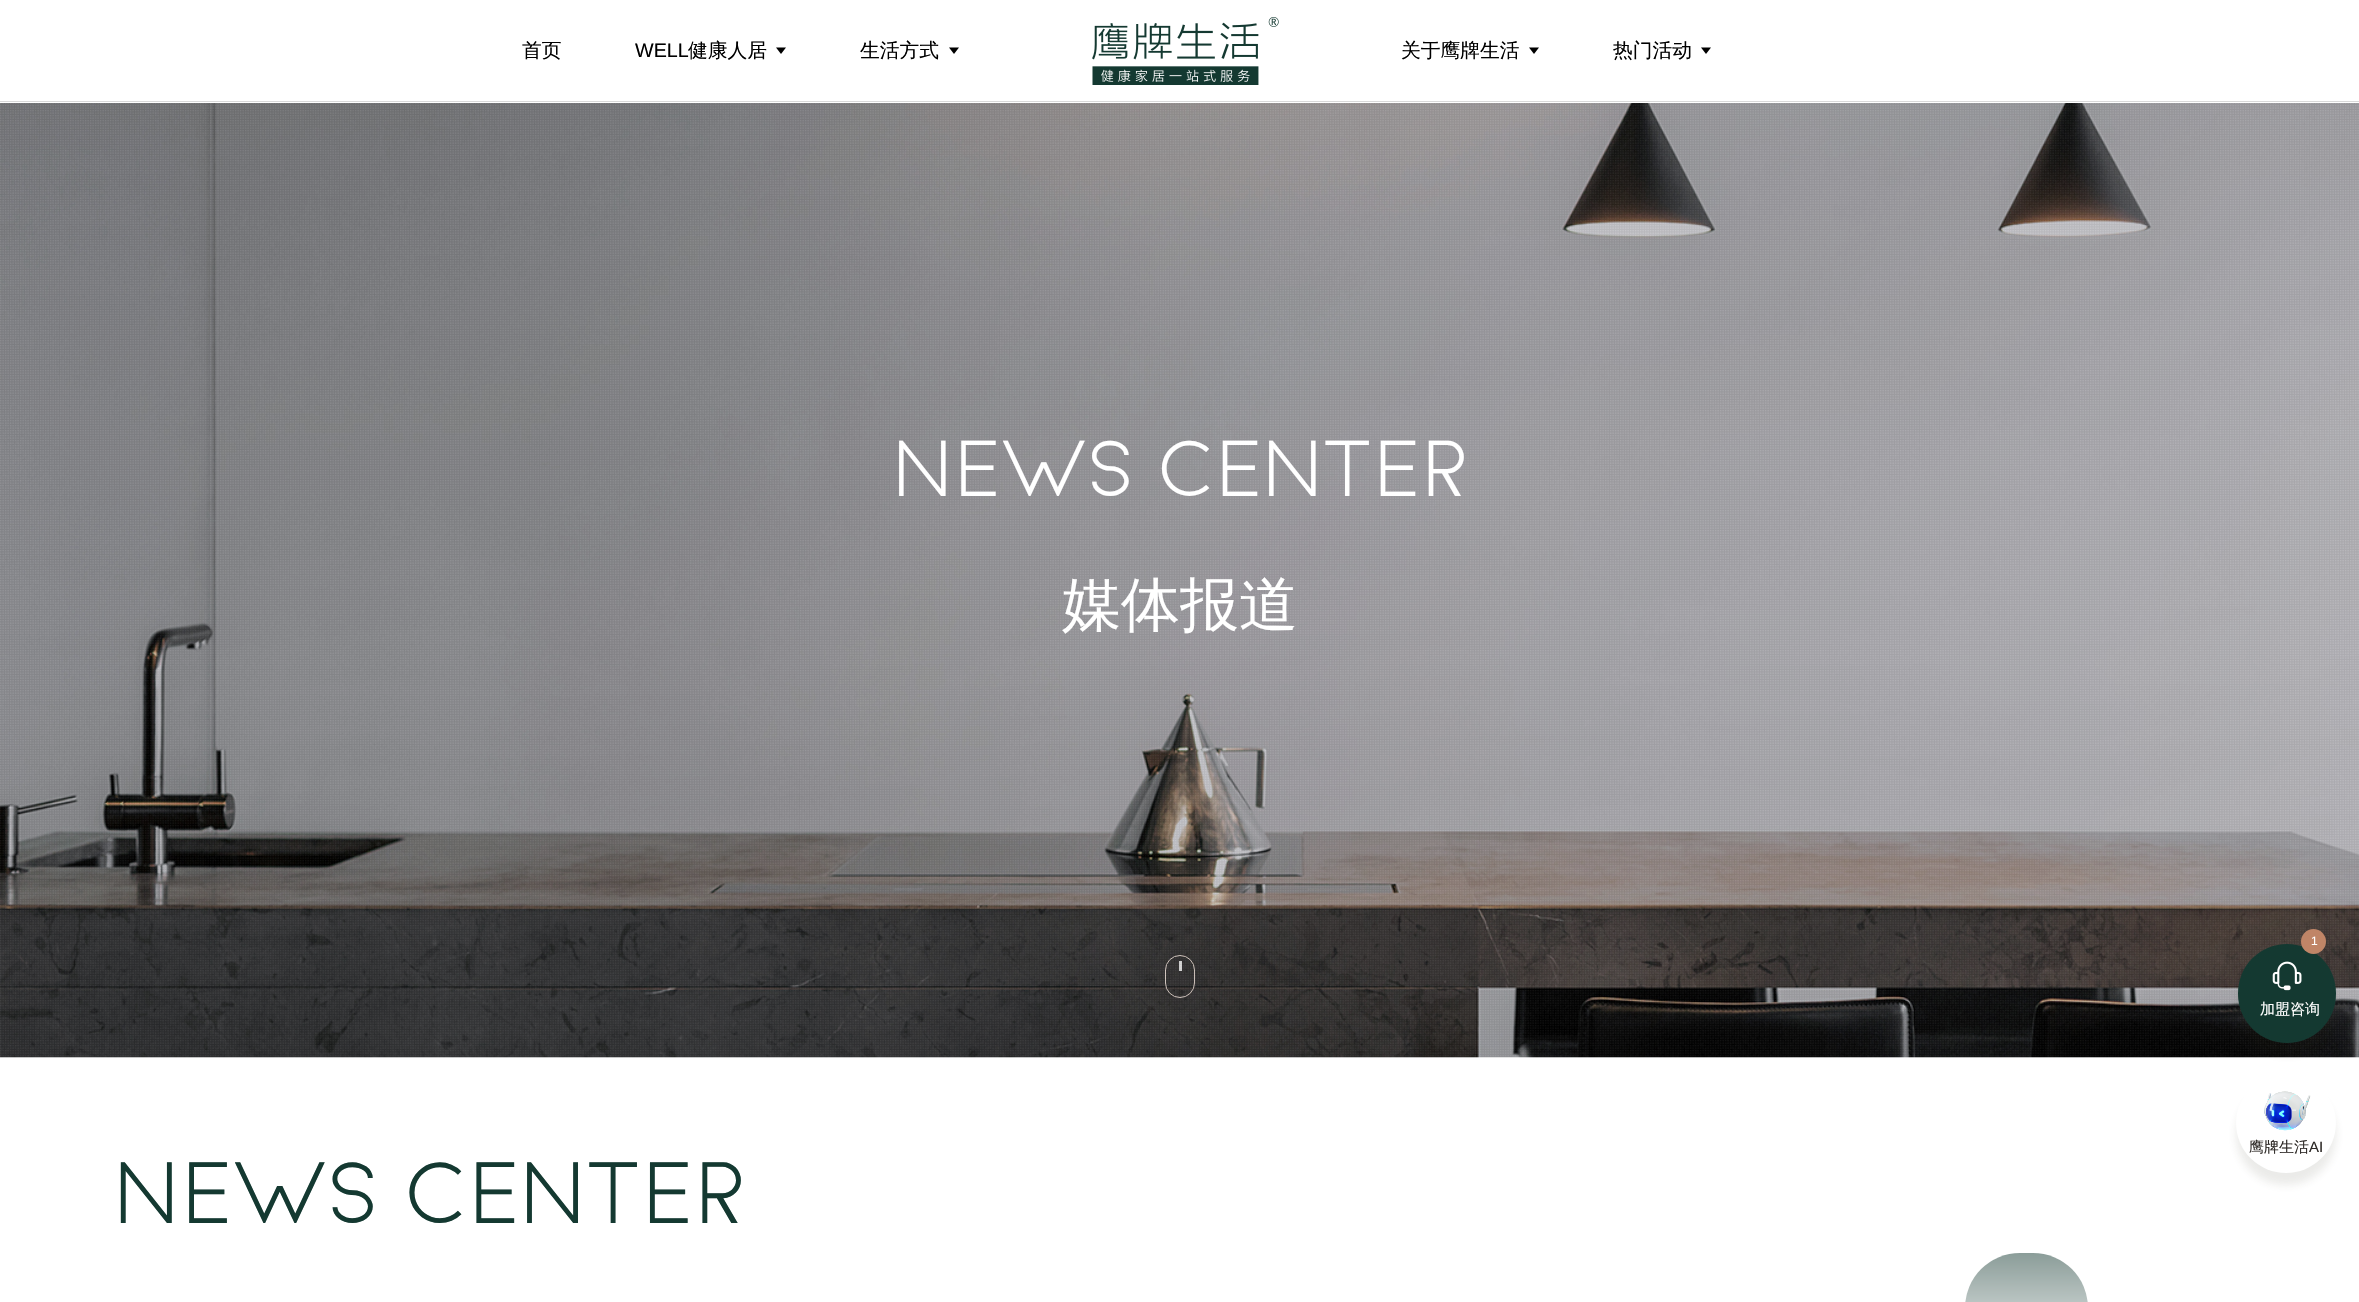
#include "include/core/SkBlurTypes.h"
#include "include/core/SkCanvas.h"
#include "include/core/SkData.h"
#include "include/core/SkFont.h"
#include "include/core/SkFontMgr.h"
#include "include/core/SkImage.h"
#include "include/core/SkMaskFilter.h"
#include "include/core/SkPaint.h"
#include "include/core/SkPathBuilder.h"
#include "include/core/SkTextBlob.h"
#include "include/effects/SkDashPathEffect.h"
#include "include/effects/SkGradientShader.h"
#include "include/utils/SkParsePath.h"

extern sk_sp<SkFontMgr> fontMgr;

void draw(SkCanvas* canvas) {
  SkPaint p;
  p.setAntiAlias(true);
  canvas->clear(SK_ColorWHITE);
  p.setColor(SkColorSetRGB(217, 217, 217));
  canvas->drawRect(SkRect::MakeLTRB(0, 101, 2359, 102), p);
  canvas->drawImageRect(SkImages::DeferredFromEncodedData(SkData::MakeFromFileName("images/1.png")), SkRect::MakeLTRB(1092, 17, 1279, 85), SkSamplingOptions());
  p.setColor(SK_ColorBLACK);
  canvas->drawPath(SkPathBuilder().moveTo(776, 47.5f).lineTo(786, 47.5f).lineTo(781, 54).close().detach(), p);
  canvas->drawPath(SkPathBuilder().moveTo(949, 47.5f).lineTo(959, 47.5f).lineTo(954, 54).close().detach(), p);
  canvas->drawPath(SkPathBuilder().moveTo(1529, 47.5f).lineTo(1539, 47.5f).lineTo(1534, 54).close().detach(), p);
  canvas->drawPath(SkPathBuilder().moveTo(1701, 47.5f).lineTo(1711, 47.5f).lineTo(1706, 54).close().detach(), p);
  canvas->drawImageRect(SkImages::DeferredFromEncodedData(SkData::MakeFromFileName("images/2.png")), SkRect::MakeLTRB(0, 103, 2359, 1058), SkSamplingOptions());
  p.setStyle(SkPaint::kStroke_Style);
  p.setStrokeWidth(1);
  p.setColor(SkColorSetRGB(252, 237, 228));
  canvas->drawRoundRect(SkRect::MakeLTRB(1165.5f, 955.5f, 1194.5f, 997.5f), 14.5f, 14.5f, p);
  p.setStyle(SkPaint::kFill_Style);
  p.setColor(SK_ColorWHITE);
  canvas->drawRect(SkRect::MakeLTRB(1179, 961, 1182, 971), p);
  canvas->drawImageRect(SkImages::DeferredFromEncodedData(SkData::MakeFromFileName("images/3.png")), SkRect::MakeLTRB(0, 103, 2359, 1058), SkSamplingOptions());
  p.setColor(SkColorSetARGB(26, 58, 54, 37));
  p.setMaskFilter(SkMaskFilter::MakeBlur(kNormal_SkBlurStyle, 4));
  canvas->drawRoundRect(SkRect::MakeLTRB(2238, 956, 2336, 1055), 49, 49, p);
  p.setMaskFilter(nullptr);
  p.setColor(SkColorSetRGB(20, 57, 49));
  canvas->drawRoundRect(SkRect::MakeLTRB(2238, 944, 2336, 1043), 49, 49, p);
  p.setColor(SkColorSetRGB(192, 133, 103));
  canvas->drawCircle(2313.5f, 941.5f, 12.5f, p);
  canvas->drawImageRect(SkImages::DeferredFromEncodedData(SkData::MakeFromFileName("images/4.png")), SkRect::MakeLTRB(2272, 961, 2302, 991), SkSamplingOptions());
  p.setColor(SkColorSetARGB(26, 58, 54, 37));
  p.setMaskFilter(SkMaskFilter::MakeBlur(kNormal_SkBlurStyle, 4));
  canvas->drawRoundRect(SkRect::MakeLTRB(2236, 1085, 2336, 1185), 50, 50, p);
  p.setMaskFilter(nullptr);
  p.setColor(SK_ColorWHITE);
  canvas->drawCircle(2286, 1123, 50, p);
  canvas->drawImageRect(SkImages::DeferredFromEncodedData(SkData::MakeFromFileName("images/5.png")), SkRect::MakeLTRB(2264, 1091, 2311, 1131), SkSamplingOptions());
  {
    const SkColor colors[] = {SK_ColorWHITE, SkColorSetRGB(138, 156, 152)};
    const float stops[] = {0, 1};
    const SkPoint ends[] = {{2026, 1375}, {2026, 1252}};
    p.setShader(SkGradientShader::MakeLinear(ends, colors, stops, 2, SkTileMode::kClamp));
    p.setAlpha(255);
  }
  canvas->drawRoundRect(SkRect::MakeLTRB(1965, 1253, 2088, 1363), 61, 61, p);
  SkFont font1(fontMgr->matchFamilyStyle("WenQuanYi Zen Hei", SkFontStyle(500, SkFontStyle::kNormal_Width, SkFontStyle::kUpright_Slant)), 19.75f);
  font1.setSubpixel(true);
  p.setShader(nullptr);
  p.setColor(SK_ColorBLACK);
  canvas->drawString("首页", 522, 57, font1, p);
  SkFont font2(fontMgr->matchFamilyStyle("Liberation Sans", SkFontStyle::Normal()), 19.75f);
  font2.setSubpixel(true);
  canvas->drawString("WELL", 635, 57, font2, p);
  canvas->drawString("健康人居", 688, 57, font1, p);
  canvas->drawString("生活方式", 860, 57, font1, p);
  canvas->drawString("关于鹰牌生活", 1401, 57, font1, p);
  canvas->drawString("热门活动", 1613, 57, font1, p);
  SkFont font3(fontMgr->matchFamilyStyle("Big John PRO", SkFontStyle::Normal()), 73.75f);
  font3.setSubpixel(true);
  p.setColor(SK_ColorWHITE);
  canvas->drawString("NEWS CENTER", 892, 496, font3, p);
  SkFont font4(fontMgr->matchFamilyStyle("WenQuanYi Zen Hei", SkFontStyle(500, SkFontStyle::kNormal_Width, SkFontStyle::kUpright_Slant)), 59);
  font4.setSubpixel(true);
  canvas->drawString("媒体报道", 1062, 625, font4, p);
  SkFont font5(fontMgr->matchFamilyStyle("Liberation Sans", SkFontStyle::Normal()), 12);
  font5.setSubpixel(true);
  canvas->drawString("1", 2311, 945, font5, p);
  SkFont font6(fontMgr->matchFamilyStyle("WenQuanYi Zen Hei", SkFontStyle(500, SkFontStyle::kNormal_Width, SkFontStyle::kUpright_Slant)), 15);
  font6.setSubpixel(true);
  canvas->drawString("加盟咨询", 2260, 1014, font6, p);
  p.setColor(SkColorSetRGB(45, 41, 38));
  canvas->drawString("鹰牌生活", 2249, 1152, font6, p);
  SkFont font7(fontMgr->matchFamilyStyle("Liberation Sans", SkFontStyle::Normal()), 15);
  font7.setSubpixel(true);
  canvas->drawString("AI", 2309, 1152, font7, p);
  SkFont font8(fontMgr->matchFamilyStyle("Big John PRO", SkFontStyle::Normal()), 81);
  font8.setSubpixel(true);
  p.setColor(SkColorSetRGB(20, 57, 49));
  canvas->drawString("NEWS CENTER", 113, 1223, font8, p);
}
